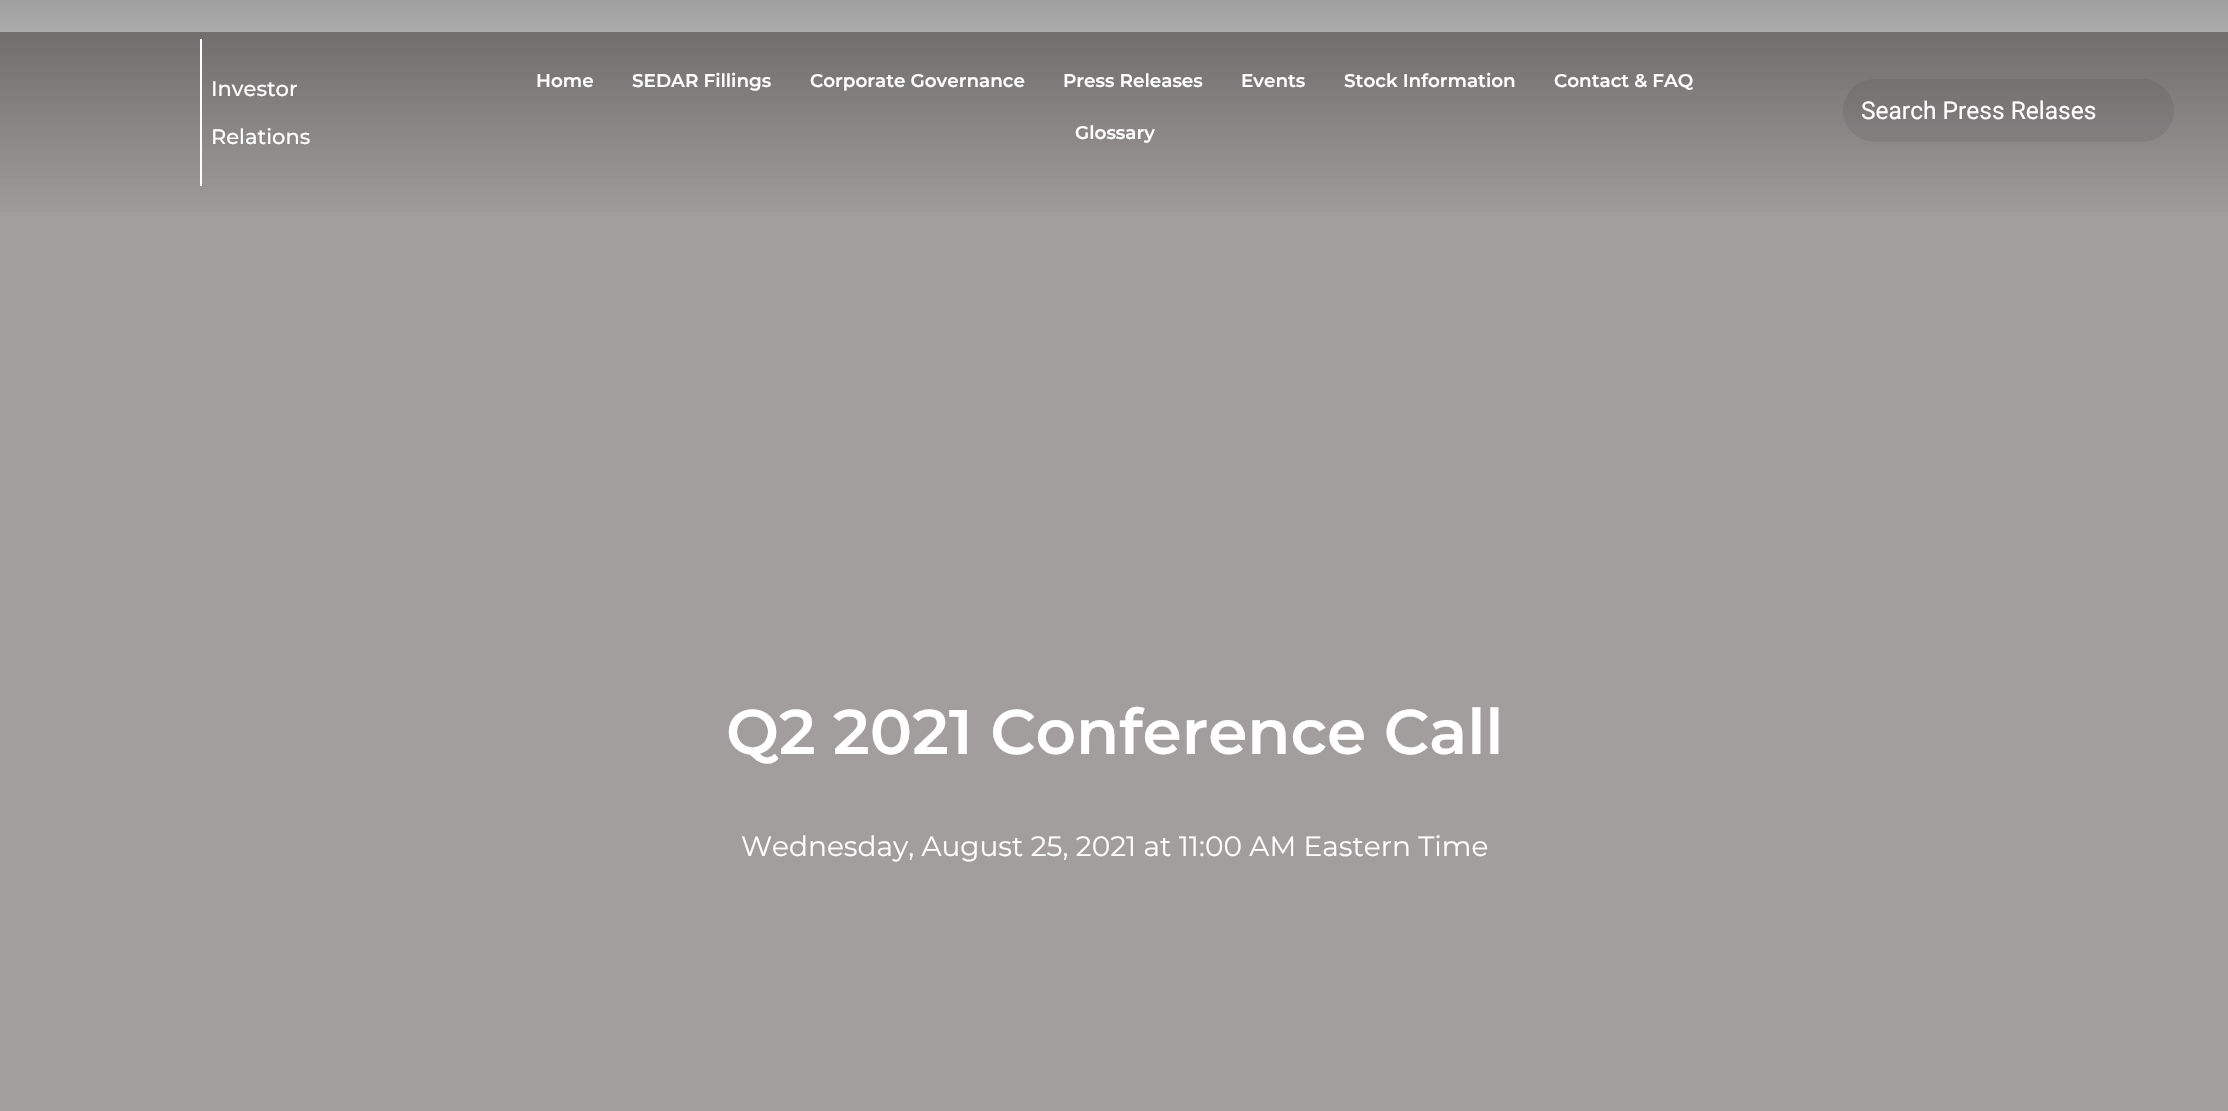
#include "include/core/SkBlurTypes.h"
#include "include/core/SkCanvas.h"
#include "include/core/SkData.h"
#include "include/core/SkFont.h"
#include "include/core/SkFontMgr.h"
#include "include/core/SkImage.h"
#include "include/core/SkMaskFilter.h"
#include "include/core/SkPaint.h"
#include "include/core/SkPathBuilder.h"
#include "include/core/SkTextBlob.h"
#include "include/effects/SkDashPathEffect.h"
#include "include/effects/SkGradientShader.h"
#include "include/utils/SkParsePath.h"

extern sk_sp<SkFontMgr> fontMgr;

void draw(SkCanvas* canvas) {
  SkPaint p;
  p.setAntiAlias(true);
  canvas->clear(SK_ColorWHITE);
  p.setColor(SkColorSetRGB(162, 158, 158));
  canvas->drawRect(SkRect::MakeLTRB(0, 32, 2228, 1111), p);
  {
    const SkColor colors[] = {SkColorSetARGB(105, 20, 20, 20), SkColorSetARGB(0, 20, 20, 20)};
    const float stops[] = {0, 1};
    const SkPoint ends[] = {{1115, 0}, {1115, 224}};
    p.setShader(SkGradientShader::MakeLinear(ends, colors, stops, 2, SkTileMode::kClamp));
    p.setAlpha(255);
  }
  canvas->drawRect(SkRect::MakeLTRB(0, 0, 2228, 212), p);
  p.setShader(nullptr);
  p.setColor(SK_ColorWHITE);
  canvas->drawRect(SkRect::MakeLTRB(200, 39, 202, 186), p);
  p.setColor(SkColorSetARGB(20, 10, 10, 10));
  canvas->drawRoundRect(SkRect::MakeLTRB(1843, 79, 2174, 142), 31.5f, 31.5f, p);
  SkFont font1(fontMgr->matchFamilyStyle("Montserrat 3", SkFontStyle(100, SkFontStyle::kNormal_Width, SkFontStyle::kUpright_Slant)), 21);
  font1.setSubpixel(true);
  p.setColor(SK_ColorWHITE);
  canvas->drawString("Investor", 211, 96, font1, p);
  canvas->drawString("Relations", 211, 144, font1, p);
  SkFont font2(fontMgr->matchFamilyStyle("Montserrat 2", SkFontStyle(100, SkFontStyle::kNormal_Width, SkFontStyle::kUpright_Slant)), 18.4f);
  font2.setSubpixel(true);
  canvas->drawString("Home", 536, 87, font2, p);
  canvas->drawString("SEDAR Fillings", 632, 87, font2, p);
  canvas->drawString("Corporate Governance", 810, 87, font2, p);
  canvas->drawString("Press Releases", 1063, 87, font2, p);
  canvas->drawString("Events", 1241, 87, font2, p);
  canvas->drawString("Stock Information", 1344, 87, font2, p);
  canvas->drawString("Contact & FAQ", 1554, 87, font2, p);
  canvas->drawString("Glossary", 1075, 139, font2, p);
  SkFont font3(fontMgr->matchFamilyStyle("Roboto", SkFontStyle::Normal()), 24.5f);
  font3.setSubpixel(true);
  canvas->drawString("Search Press Relases", 1861, 119, font3, p);
  SkFont font4(fontMgr->matchFamilyStyle("Montserrat 2", SkFontStyle(100, SkFontStyle::kNormal_Width, SkFontStyle::kUpright_Slant)), 63);
  font4.setSubpixel(true);
  canvas->drawString("Q2 2021 Conference Call", 726, 754, font4, p);
  SkFont font5(fontMgr->matchFamilyStyle("Montserrat", SkFontStyle(100, SkFontStyle::kNormal_Width, SkFontStyle::kUpright_Slant)), 28);
  font5.setSubpixel(true);
  canvas->drawString("Wednesday, August 25, 2021 at 11:00 AM Eastern Time", 741, 856, font5, p);
}
